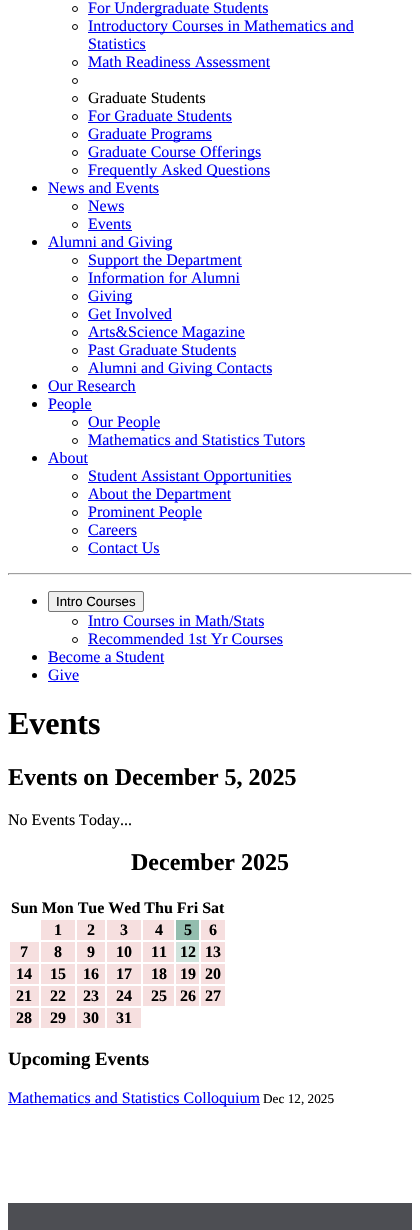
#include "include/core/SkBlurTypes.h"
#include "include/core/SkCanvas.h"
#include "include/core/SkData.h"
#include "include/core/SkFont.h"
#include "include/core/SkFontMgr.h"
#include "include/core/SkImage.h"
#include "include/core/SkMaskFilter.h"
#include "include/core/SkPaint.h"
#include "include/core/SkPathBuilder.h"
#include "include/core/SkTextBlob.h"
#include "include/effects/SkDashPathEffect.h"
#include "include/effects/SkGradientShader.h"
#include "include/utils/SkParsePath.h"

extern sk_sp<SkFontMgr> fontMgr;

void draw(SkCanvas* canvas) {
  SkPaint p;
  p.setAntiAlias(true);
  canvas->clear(SK_ColorWHITE);
  p.setStyle(SkPaint::kStroke_Style);
  p.setStrokeWidth(1);
  p.setColor(SK_ColorBLACK);
  canvas->drawCircle(75, 9, 2.5f, p);
  p.setStyle(SkPaint::kFill_Style);
  p.setColor(SkColorSetRGB(0, 0, 238));
  canvas->drawRect(SkRect::MakeLTRB(88, 14, 268, 15), p);
  p.setStyle(SkPaint::kStroke_Style);
  p.setColor(SK_ColorBLACK);
  canvas->drawCircle(75, 27, 2.5f, p);
  p.setStyle(SkPaint::kFill_Style);
  p.setColor(SkColorSetRGB(0, 0, 238));
  canvas->drawRect(SkRect::MakeLTRB(88, 32, 354, 33), p);
  canvas->drawRect(SkRect::MakeLTRB(88, 50, 146, 51), p);
  p.setStyle(SkPaint::kStroke_Style);
  p.setColor(SK_ColorBLACK);
  canvas->drawCircle(75, 63, 2.5f, p);
  p.setStyle(SkPaint::kFill_Style);
  p.setColor(SkColorSetRGB(0, 0, 238));
  canvas->drawRect(SkRect::MakeLTRB(88, 68, 270, 69), p);
  p.setStyle(SkPaint::kStroke_Style);
  p.setColor(SK_ColorBLACK);
  canvas->drawCircle(75, 81, 2.5f, p);
  canvas->drawCircle(75, 99, 2.5f, p);
  canvas->drawCircle(75, 117, 2.5f, p);
  p.setStyle(SkPaint::kFill_Style);
  p.setColor(SkColorSetRGB(0, 0, 238));
  canvas->drawRect(SkRect::MakeLTRB(88, 122, 232, 123), p);
  p.setStyle(SkPaint::kStroke_Style);
  p.setColor(SK_ColorBLACK);
  canvas->drawCircle(75, 135, 2.5f, p);
  p.setStyle(SkPaint::kFill_Style);
  p.setColor(SkColorSetRGB(0, 0, 238));
  canvas->drawRect(SkRect::MakeLTRB(88, 140, 212, 141), p);
  p.setStyle(SkPaint::kStroke_Style);
  p.setColor(SK_ColorBLACK);
  canvas->drawCircle(75, 153, 2.5f, p);
  p.setStyle(SkPaint::kFill_Style);
  p.setColor(SkColorSetRGB(0, 0, 238));
  canvas->drawRect(SkRect::MakeLTRB(88, 158, 261, 159), p);
  p.setStyle(SkPaint::kStroke_Style);
  p.setColor(SK_ColorBLACK);
  canvas->drawCircle(75, 171, 2.5f, p);
  p.setStyle(SkPaint::kFill_Style);
  p.setColor(SkColorSetRGB(0, 0, 238));
  canvas->drawRect(SkRect::MakeLTRB(88, 176, 270, 177), p);
  p.setColor(SK_ColorBLACK);
  canvas->drawCircle(34.5f, 188.5f, 2.5f, p);
  p.setColor(SkColorSetRGB(0, 0, 238));
  canvas->drawRect(SkRect::MakeLTRB(48, 194, 159, 195), p);
  p.setStyle(SkPaint::kStroke_Style);
  p.setColor(SK_ColorBLACK);
  canvas->drawCircle(75, 207, 2.5f, p);
  p.setStyle(SkPaint::kFill_Style);
  p.setColor(SkColorSetRGB(0, 0, 238));
  canvas->drawRect(SkRect::MakeLTRB(88, 212, 124, 213), p);
  p.setStyle(SkPaint::kStroke_Style);
  p.setColor(SK_ColorBLACK);
  canvas->drawCircle(75, 225, 2.5f, p);
  p.setStyle(SkPaint::kFill_Style);
  p.setColor(SkColorSetRGB(0, 0, 238));
  canvas->drawRect(SkRect::MakeLTRB(88, 230, 132, 231), p);
  p.setColor(SK_ColorBLACK);
  canvas->drawCircle(34.5f, 242.5f, 2.5f, p);
  p.setColor(SkColorSetRGB(0, 0, 238));
  canvas->drawRect(SkRect::MakeLTRB(48, 248, 172, 249), p);
  p.setStyle(SkPaint::kStroke_Style);
  p.setColor(SK_ColorBLACK);
  canvas->drawCircle(75, 261, 2.5f, p);
  p.setStyle(SkPaint::kFill_Style);
  p.setColor(SkColorSetRGB(0, 0, 238));
  canvas->drawRect(SkRect::MakeLTRB(88, 266, 242, 267), p);
  p.setStyle(SkPaint::kStroke_Style);
  p.setColor(SK_ColorBLACK);
  canvas->drawCircle(75, 279, 2.5f, p);
  p.setStyle(SkPaint::kFill_Style);
  p.setColor(SkColorSetRGB(0, 0, 238));
  canvas->drawRect(SkRect::MakeLTRB(88, 284, 240, 285), p);
  p.setStyle(SkPaint::kStroke_Style);
  p.setColor(SK_ColorBLACK);
  canvas->drawCircle(75, 297, 2.5f, p);
  p.setStyle(SkPaint::kFill_Style);
  p.setColor(SkColorSetRGB(0, 0, 238));
  canvas->drawRect(SkRect::MakeLTRB(88, 302, 132, 303), p);
  p.setStyle(SkPaint::kStroke_Style);
  p.setColor(SK_ColorBLACK);
  canvas->drawCircle(75, 315, 2.5f, p);
  p.setStyle(SkPaint::kFill_Style);
  p.setColor(SkColorSetRGB(0, 0, 238));
  canvas->drawRect(SkRect::MakeLTRB(88, 320, 172, 321), p);
  p.setStyle(SkPaint::kStroke_Style);
  p.setColor(SK_ColorBLACK);
  canvas->drawCircle(75, 333, 2.5f, p);
  p.setStyle(SkPaint::kFill_Style);
  p.setColor(SkColorSetRGB(0, 0, 238));
  canvas->drawRect(SkRect::MakeLTRB(88, 338, 245, 339), p);
  p.setStyle(SkPaint::kStroke_Style);
  p.setColor(SK_ColorBLACK);
  canvas->drawCircle(75, 351, 2.5f, p);
  p.setStyle(SkPaint::kFill_Style);
  p.setColor(SkColorSetRGB(0, 0, 238));
  canvas->drawRect(SkRect::MakeLTRB(88, 356, 236, 357), p);
  p.setStyle(SkPaint::kStroke_Style);
  p.setColor(SK_ColorBLACK);
  canvas->drawCircle(75, 369, 2.5f, p);
  p.setStyle(SkPaint::kFill_Style);
  p.setColor(SkColorSetRGB(0, 0, 238));
  canvas->drawRect(SkRect::MakeLTRB(88, 374, 272, 375), p);
  p.setColor(SK_ColorBLACK);
  canvas->drawCircle(34.5f, 386.5f, 2.5f, p);
  p.setColor(SkColorSetRGB(0, 0, 238));
  canvas->drawRect(SkRect::MakeLTRB(48, 392, 136, 393), p);
  p.setColor(SK_ColorBLACK);
  canvas->drawCircle(34.5f, 404.5f, 2.5f, p);
  p.setColor(SkColorSetRGB(0, 0, 238));
  canvas->drawRect(SkRect::MakeLTRB(48, 410, 92, 411), p);
  p.setStyle(SkPaint::kStroke_Style);
  p.setColor(SK_ColorBLACK);
  canvas->drawCircle(75, 423, 2.5f, p);
  p.setStyle(SkPaint::kFill_Style);
  p.setColor(SkColorSetRGB(0, 0, 238));
  canvas->drawRect(SkRect::MakeLTRB(88, 428, 160, 429), p);
  p.setStyle(SkPaint::kStroke_Style);
  p.setColor(SK_ColorBLACK);
  canvas->drawCircle(75, 441, 2.5f, p);
  p.setStyle(SkPaint::kFill_Style);
  p.setColor(SkColorSetRGB(0, 0, 238));
  canvas->drawRect(SkRect::MakeLTRB(88, 446, 305, 447), p);
  p.setColor(SK_ColorBLACK);
  canvas->drawCircle(34.5f, 458.5f, 2.5f, p);
  p.setColor(SkColorSetRGB(0, 0, 238));
  canvas->drawRect(SkRect::MakeLTRB(48, 464, 88, 465), p);
  p.setStyle(SkPaint::kStroke_Style);
  p.setColor(SK_ColorBLACK);
  canvas->drawCircle(75, 477, 2.5f, p);
  p.setStyle(SkPaint::kFill_Style);
  p.setColor(SkColorSetRGB(0, 0, 238));
  canvas->drawRect(SkRect::MakeLTRB(88, 482, 292, 483), p);
  p.setStyle(SkPaint::kStroke_Style);
  p.setColor(SK_ColorBLACK);
  canvas->drawCircle(75, 495, 2.5f, p);
  p.setStyle(SkPaint::kFill_Style);
  p.setColor(SkColorSetRGB(0, 0, 238));
  canvas->drawRect(SkRect::MakeLTRB(88, 500, 231, 501), p);
  p.setStyle(SkPaint::kStroke_Style);
  p.setColor(SK_ColorBLACK);
  canvas->drawCircle(75, 513, 2.5f, p);
  p.setStyle(SkPaint::kFill_Style);
  p.setColor(SkColorSetRGB(0, 0, 238));
  canvas->drawRect(SkRect::MakeLTRB(88, 518, 202, 519), p);
  p.setStyle(SkPaint::kStroke_Style);
  p.setColor(SK_ColorBLACK);
  canvas->drawCircle(75, 531, 2.5f, p);
  p.setStyle(SkPaint::kFill_Style);
  p.setColor(SkColorSetRGB(0, 0, 238));
  canvas->drawRect(SkRect::MakeLTRB(88, 536, 137, 537), p);
  p.setStyle(SkPaint::kStroke_Style);
  p.setColor(SK_ColorBLACK);
  canvas->drawCircle(75, 549, 2.5f, p);
  p.setStyle(SkPaint::kFill_Style);
  p.setColor(SkColorSetRGB(0, 0, 238));
  canvas->drawRect(SkRect::MakeLTRB(88, 554, 160, 555), p);
  p.setColor(SkColorSetRGB(159, 159, 159));
  canvas->drawRect(SkRect::MakeLTRB(8, 573, 412, 574), p);
  p.setColor(SkColorSetRGB(238, 238, 238));
  canvas->drawRect(SkRect::MakeLTRB(411, 573, 412, 575), p);
  canvas->drawRect(SkRect::MakeLTRB(8, 574, 412, 575), p);
  p.setColor(SkColorSetRGB(159, 159, 159));
  canvas->drawRect(SkRect::MakeLTRB(8, 573, 9, 575), p);
  p.setColor(SK_ColorBLACK);
  canvas->drawCircle(34.5f, 601.5f, 2.5f, p);
  p.setColor(SkColorSetRGB(239, 239, 239));
  canvas->drawRoundRect(SkRect::MakeLTRB(48.5f, 591.5f, 143.5f, 611.5f), 1.5f, 1.5f, p);
  p.setStyle(SkPaint::kStroke_Style);
  p.setColor(SkColorSetRGB(118, 118, 118));
  canvas->drawRoundRect(SkRect::MakeLTRB(48.5f, 591.5f, 143.5f, 611.5f), 1.5f, 1.5f, p);
  p.setColor(SK_ColorBLACK);
  canvas->drawCircle(75, 622, 2.5f, p);
  p.setStyle(SkPaint::kFill_Style);
  p.setColor(SkColorSetRGB(0, 0, 238));
  canvas->drawRect(SkRect::MakeLTRB(88, 627, 264, 628), p);
  p.setStyle(SkPaint::kStroke_Style);
  p.setColor(SK_ColorBLACK);
  canvas->drawCircle(75, 640, 2.5f, p);
  p.setStyle(SkPaint::kFill_Style);
  p.setColor(SkColorSetRGB(0, 0, 238));
  canvas->drawRect(SkRect::MakeLTRB(88, 645, 283, 646), p);
  p.setColor(SK_ColorBLACK);
  canvas->drawCircle(34.5f, 657.5f, 2.5f, p);
  p.setColor(SkColorSetRGB(0, 0, 238));
  canvas->drawRect(SkRect::MakeLTRB(48, 663, 164, 664), p);
  p.setColor(SK_ColorBLACK);
  canvas->drawCircle(34.5f, 675.5f, 2.5f, p);
  p.setColor(SkColorSetRGB(0, 0, 238));
  canvas->drawRect(SkRect::MakeLTRB(48, 681, 79, 682), p);
  p.setColor(SkColorSetRGB(246, 223, 223));
  canvas->drawRect(SkRect::MakeLTRB(41, 920, 75, 940), p);
  canvas->drawRect(SkRect::MakeLTRB(77, 920, 105, 940), p);
  canvas->drawRect(SkRect::MakeLTRB(107, 920, 141, 940), p);
  canvas->drawRect(SkRect::MakeLTRB(143, 920, 174, 940), p);
  p.setColor(SkColorSetRGB(147, 189, 174));
  canvas->drawRect(SkRect::MakeLTRB(176, 920, 199, 940), p);
  p.setColor(SkColorSetRGB(246, 223, 223));
  canvas->drawRect(SkRect::MakeLTRB(201, 920, 225, 940), p);
  canvas->drawRect(SkRect::MakeLTRB(10, 942, 39, 962), p);
  canvas->drawRect(SkRect::MakeLTRB(41, 942, 75, 962), p);
  canvas->drawRect(SkRect::MakeLTRB(77, 942, 105, 962), p);
  canvas->drawRect(SkRect::MakeLTRB(107, 942, 141, 962), p);
  canvas->drawRect(SkRect::MakeLTRB(143, 942, 174, 962), p);
  p.setColor(SkColorSetRGB(208, 227, 220));
  canvas->drawRect(SkRect::MakeLTRB(176, 942, 199, 962), p);
  p.setColor(SkColorSetRGB(246, 223, 223));
  canvas->drawRect(SkRect::MakeLTRB(201, 942, 225, 962), p);
  canvas->drawRect(SkRect::MakeLTRB(10, 964, 39, 984), p);
  canvas->drawRect(SkRect::MakeLTRB(41, 964, 75, 984), p);
  canvas->drawRect(SkRect::MakeLTRB(77, 964, 105, 984), p);
  canvas->drawRect(SkRect::MakeLTRB(107, 964, 141, 984), p);
  canvas->drawRect(SkRect::MakeLTRB(143, 964, 174, 984), p);
  canvas->drawRect(SkRect::MakeLTRB(176, 964, 199, 984), p);
  canvas->drawRect(SkRect::MakeLTRB(201, 964, 225, 984), p);
  canvas->drawRect(SkRect::MakeLTRB(10, 986, 39, 1006), p);
  canvas->drawRect(SkRect::MakeLTRB(41, 986, 75, 1006), p);
  canvas->drawRect(SkRect::MakeLTRB(77, 986, 105, 1006), p);
  canvas->drawRect(SkRect::MakeLTRB(107, 986, 141, 1006), p);
  canvas->drawRect(SkRect::MakeLTRB(143, 986, 174, 1006), p);
  canvas->drawRect(SkRect::MakeLTRB(176, 986, 199, 1006), p);
  canvas->drawRect(SkRect::MakeLTRB(201, 986, 225, 1006), p);
  canvas->drawRect(SkRect::MakeLTRB(10, 1008, 39, 1028), p);
  canvas->drawRect(SkRect::MakeLTRB(41, 1008, 75, 1028), p);
  canvas->drawRect(SkRect::MakeLTRB(77, 1008, 105, 1028), p);
  canvas->drawRect(SkRect::MakeLTRB(107, 1008, 141, 1028), p);
  p.setColor(SkColorSetRGB(0, 0, 238));
  canvas->drawRect(SkRect::MakeLTRB(8, 1104, 260, 1105), p);
  p.setColor(SkColorSetRGB(77, 78, 83));
  canvas->drawRect(SkRect::MakeLTRB(8, 1203, 412, 1230), p);
  SkFont font1(fontMgr->matchFamilyStyle("Liberation Serif", SkFontStyle::Normal()), 16);
  font1.setSubpixel(true);
  p.setColor(SkColorSetRGB(0, 0, 238));
  canvas->drawString("For Undergraduate Students", 88, 13, font1, p);
  canvas->drawString("Introductory Courses in Mathematics and", 88, 31, font1, p);
  canvas->drawString("Statistics", 88, 49, font1, p);
  canvas->drawString("Math Readiness Assessment", 88, 67, font1, p);
  p.setColor(SK_ColorBLACK);
  canvas->drawString("Graduate Students", 88, 103, font1, p);
  p.setColor(SkColorSetRGB(0, 0, 238));
  canvas->drawString("For Graduate Students", 88, 121, font1, p);
  canvas->drawString("Graduate Programs", 88, 139, font1, p);
  canvas->drawString("Graduate Course Offerings", 88, 157, font1, p);
  canvas->drawString("Frequently Asked Questions", 88, 175, font1, p);
  canvas->drawString("News and Events", 48, 193, font1, p);
  canvas->drawString("News", 88, 211, font1, p);
  canvas->drawString("Events", 88, 229, font1, p);
  canvas->drawString("Alumni and Giving", 48, 247, font1, p);
  canvas->drawString("Support the Department", 88, 265, font1, p);
  canvas->drawString("Information for Alumni", 88, 283, font1, p);
  canvas->drawString("Giving", 88, 301, font1, p);
  canvas->drawString("Get Involved", 88, 319, font1, p);
  canvas->drawString("Arts&Science Magazine", 88, 337, font1, p);
  canvas->drawString("Past Graduate Students", 88, 355, font1, p);
  canvas->drawString("Alumni and Giving Contacts", 88, 373, font1, p);
  canvas->drawString("Our Research", 48, 391, font1, p);
  canvas->drawString("People", 48, 409, font1, p);
  canvas->drawString("Our People", 88, 427, font1, p);
  canvas->drawString("Mathematics and Statistics Tutors", 88, 445, font1, p);
  canvas->drawString("About", 48, 463, font1, p);
  canvas->drawString("Student Assistant Opportunities", 88, 481, font1, p);
  canvas->drawString("About the Department", 88, 499, font1, p);
  canvas->drawString("Prominent People", 88, 517, font1, p);
  canvas->drawString("Careers", 88, 535, font1, p);
  canvas->drawString("Contact Us", 88, 553, font1, p);
  SkFont font2(fontMgr->matchFamilyStyle("Liberation Sans", SkFontStyle::Normal()), 13.25f);
  font2.setSubpixel(true);
  p.setColor(SK_ColorBLACK);
  canvas->drawString("Intro Courses", 56, 606, font2, p);
  p.setColor(SkColorSetRGB(0, 0, 238));
  canvas->drawString("Intro Courses in Math/Stats", 88, 626, font1, p);
  canvas->drawString("Recommended 1st Yr Courses", 88, 644, font1, p);
  canvas->drawString("Become a Student", 48, 662, font1, p);
  canvas->drawString("Give", 48, 680, font1, p);
  SkFont font3(fontMgr->matchFamilyStyle("Liberation Serif", SkFontStyle::Bold()), 32);
  font3.setSubpixel(true);
  p.setColor(SK_ColorBLACK);
  canvas->drawString("Events", 8, 734, font3, p);
  SkFont font4(fontMgr->matchFamilyStyle("Liberation Serif", SkFontStyle::Bold()), 24);
  font4.setSubpixel(true);
  canvas->drawString("Events on December 5, 2025", 8, 785, font4, p);
  canvas->drawString("No Events Today...", 8, 825, font1, p);
  canvas->drawString("December 2025", 131, 870, font4, p);
  SkFont font5(fontMgr->matchFamilyStyle("Liberation Serif", SkFontStyle::Bold()), 16);
  font5.setSubpixel(true);
  canvas->drawString("Sun Mon Tue Wed Thu Fri Sat", 11, 913, font5, p);
  canvas->drawString("1", 54, 935, font5, p);
  canvas->drawString("2", 87, 935, font5, p);
  canvas->drawString("3", 120, 935, font5, p);
  canvas->drawString("4", 155, 935, font5, p);
  canvas->drawString("5", 184, 935, font5, p);
  canvas->drawString("6", 209, 935, font5, p);
  canvas->drawString("7", 20, 957, font5, p);
  canvas->drawString("8", 54, 957, font5, p);
  canvas->drawString("9", 87, 957, font5, p);
  canvas->drawString("10", 116, 957, font5, p);
  canvas->drawString("11", 151, 957, font5, p);
  canvas->drawString("12", 180, 957, font5, p);
  canvas->drawString("13", 205, 957, font5, p);
  canvas->drawString("14", 16, 979, font5, p);
  canvas->drawString("15", 50, 979, font5, p);
  canvas->drawString("16", 83, 979, font5, p);
  canvas->drawString("17", 116, 979, font5, p);
  canvas->drawString("18", 151, 979, font5, p);
  canvas->drawString("19", 180, 979, font5, p);
  canvas->drawString("20", 205, 979, font5, p);
  canvas->drawString("21", 16, 1001, font5, p);
  canvas->drawString("22", 50, 1001, font5, p);
  canvas->drawString("23", 83, 1001, font5, p);
  canvas->drawString("24", 116, 1001, font5, p);
  canvas->drawString("25", 151, 1001, font5, p);
  canvas->drawString("26", 180, 1001, font5, p);
  canvas->drawString("27", 205, 1001, font5, p);
  canvas->drawString("28", 16, 1023, font5, p);
  canvas->drawString("29", 50, 1023, font5, p);
  canvas->drawString("30", 83, 1023, font5, p);
  canvas->drawString("31", 116, 1023, font5, p);
  SkFont font6(fontMgr->matchFamilyStyle("Liberation Serif", SkFontStyle::Bold()), 18.75f);
  font6.setSubpixel(true);
  canvas->drawString("Upcoming Events", 8, 1065, font6, p);
  p.setColor(SkColorSetRGB(0, 0, 238));
  canvas->drawString("Mathematics and Statistics Colloquium", 8, 1103, font1, p);
  SkFont font7(fontMgr->matchFamilyStyle("Liberation Serif", SkFontStyle::Normal()), 13.25f);
  font7.setSubpixel(true);
  p.setColor(SK_ColorBLACK);
  canvas->drawString("Dec 12, 2025", 263, 1103, font7, p);
}
